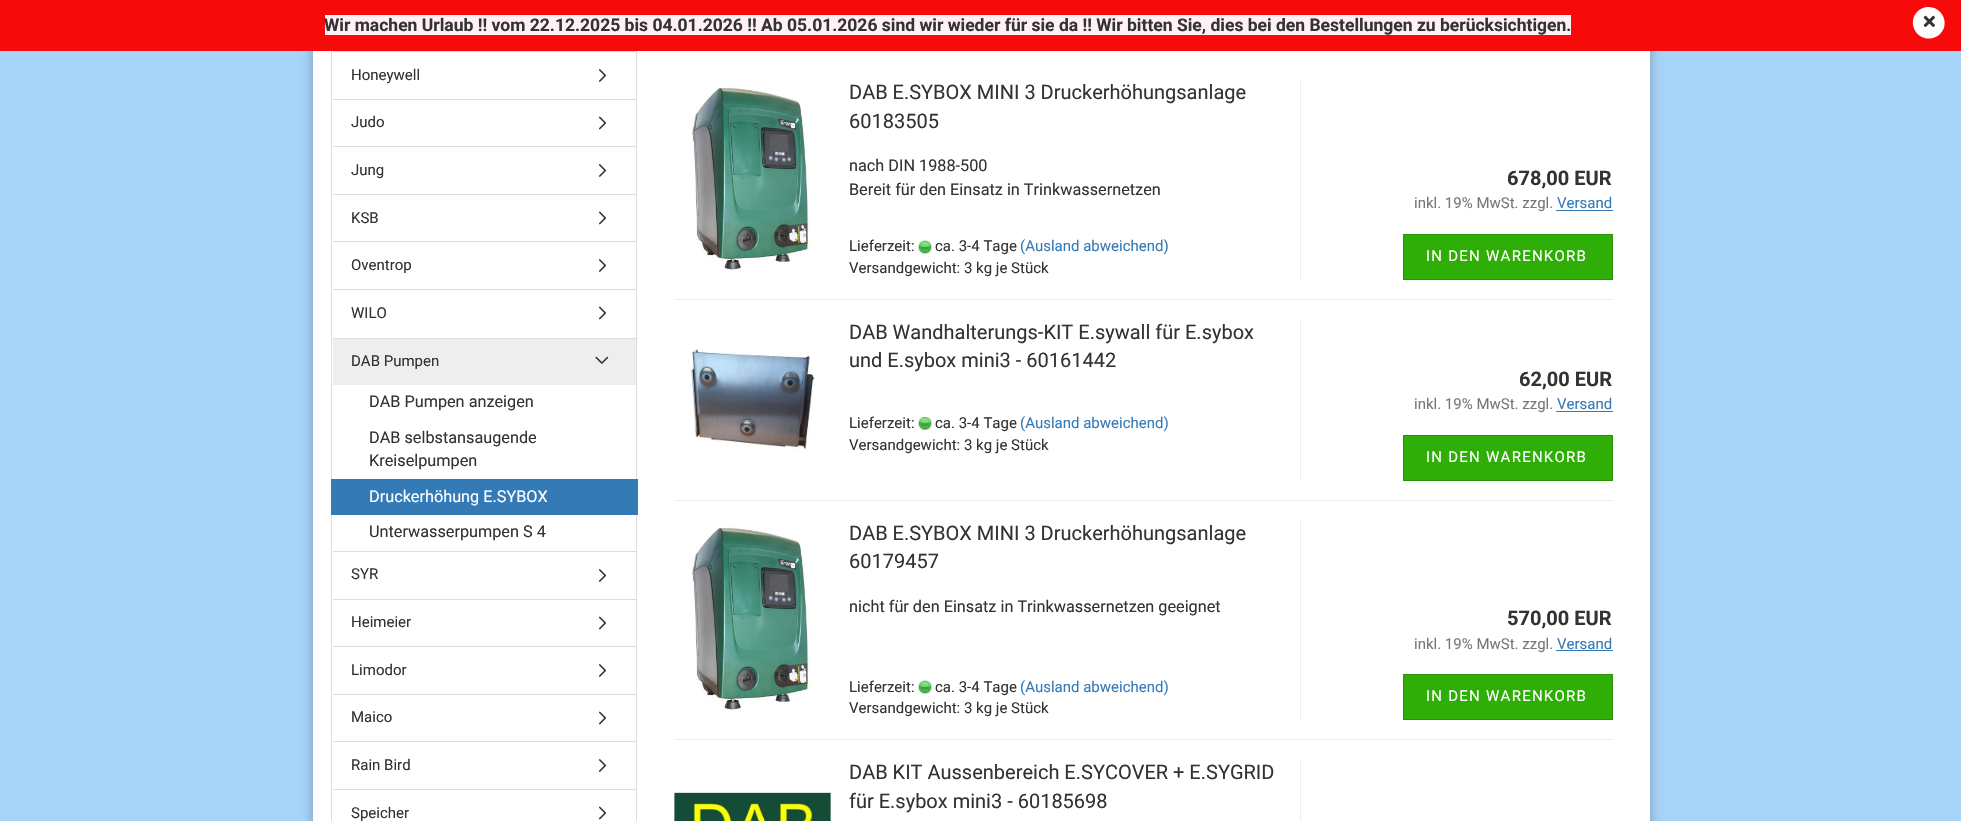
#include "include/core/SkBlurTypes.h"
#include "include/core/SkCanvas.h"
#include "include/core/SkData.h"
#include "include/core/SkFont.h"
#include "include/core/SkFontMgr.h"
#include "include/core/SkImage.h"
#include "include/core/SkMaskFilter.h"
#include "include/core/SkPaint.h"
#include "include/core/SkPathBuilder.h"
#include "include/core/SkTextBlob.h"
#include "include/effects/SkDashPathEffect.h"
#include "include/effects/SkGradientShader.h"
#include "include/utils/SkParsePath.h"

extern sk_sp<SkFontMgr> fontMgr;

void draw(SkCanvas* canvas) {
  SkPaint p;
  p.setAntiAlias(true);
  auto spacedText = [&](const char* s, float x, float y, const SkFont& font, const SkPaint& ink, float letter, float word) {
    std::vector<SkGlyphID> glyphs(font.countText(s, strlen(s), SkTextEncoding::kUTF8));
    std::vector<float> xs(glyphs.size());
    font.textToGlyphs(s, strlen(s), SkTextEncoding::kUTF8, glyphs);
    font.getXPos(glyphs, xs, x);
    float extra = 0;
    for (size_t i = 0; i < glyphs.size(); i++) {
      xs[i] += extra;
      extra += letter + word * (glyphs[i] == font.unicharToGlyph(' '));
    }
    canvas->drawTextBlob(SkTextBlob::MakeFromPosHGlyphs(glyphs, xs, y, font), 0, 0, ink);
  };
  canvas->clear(SkColorSetRGB(169, 212, 250));
  p.setColor(SkColorSetARGB(77, 0, 0, 0));
  p.setMaskFilter(SkMaskFilter::MakeBlur(kNormal_SkBlurStyle, 6));
  canvas->drawRoundRect(SkRect::MakeLTRB(313, -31, 1650, 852), 13, 13, p);
  p.setMaskFilter(nullptr);
  p.setColor(SK_ColorWHITE);
  canvas->drawRect(SkRect::MakeLTRB(313, 51, 1650, 821), p);
  p.setColor(SkColorSetRGB(247, 10, 10));
  canvas->drawRect(SkRect::MakeLTRB(0, 0, 1961, 51), p);
  p.setColor(SkColorSetRGB(255, 240, 245));
  canvas->drawRect(SkRect::MakeLTRB(325, 15, 1571, 35), p);
  p.setColor(SK_ColorWHITE);
  canvas->drawPath(SkPathBuilder().moveTo(1917.5f, 11.5f).cubicTo(1920, 9, 1923.5f, 7.5f, 1927, 7).cubicTo(1942, 6, 1950.5f, 23.5f, 1940, 34).cubicTo(1937.5f, 36.5f, 1934, 38, 1930.5f, 38.5f).cubicTo(1915.5f, 40, 1907, 22, 1917.5f, 11.5f).close().detach(), p);
  canvas->drawImageRect(SkImages::DeferredFromEncodedData(SkData::MakeFromFileName("images/1.png")), SkRect::MakeLTRB(1923, 15, 1935, 27), SkSamplingOptions());
  p.setColor(SkColorSetRGB(221, 221, 221));
  canvas->drawRect(SkRect::MakeLTRB(636, 51, 637, 821), p);
  canvas->drawRect(SkRect::MakeLTRB(331, 51, 332, 821), p);
  canvas->drawRect(SkRect::MakeLTRB(333, 51, 636, 52), p);
  canvas->drawRect(SkRect::MakeLTRB(333, 99, 636, 100), p);
  canvas->drawImageRect(SkImages::DeferredFromEncodedData(SkData::MakeFromFileName("images/2.png")), SkRect::MakeLTRB(599, 69, 607, 82), SkSamplingOptions());
  canvas->drawRect(SkRect::MakeLTRB(333, 146, 636, 147), p);
  canvas->drawImageRect(SkImages::DeferredFromEncodedData(SkData::MakeFromFileName("images/3.png")), SkRect::MakeLTRB(599, 116, 606, 130), SkSamplingOptions());
  canvas->drawRect(SkRect::MakeLTRB(333, 194, 636, 195), p);
  canvas->drawImageRect(SkImages::DeferredFromEncodedData(SkData::MakeFromFileName("images/2.png")), SkRect::MakeLTRB(599, 164, 607, 177), SkSamplingOptions());
  canvas->drawRect(SkRect::MakeLTRB(333, 241, 636, 242), p);
  canvas->drawImageRect(SkImages::DeferredFromEncodedData(SkData::MakeFromFileName("images/3.png")), SkRect::MakeLTRB(599, 211, 606, 225), SkSamplingOptions());
  canvas->drawRect(SkRect::MakeLTRB(333, 289, 636, 290), p);
  canvas->drawImageRect(SkImages::DeferredFromEncodedData(SkData::MakeFromFileName("images/2.png")), SkRect::MakeLTRB(599, 259, 607, 272), SkSamplingOptions());
  canvas->drawRect(SkRect::MakeLTRB(333, 338, 636, 339), p);
  canvas->drawImageRect(SkImages::DeferredFromEncodedData(SkData::MakeFromFileName("images/3.png")), SkRect::MakeLTRB(599, 306, 606, 320), SkSamplingOptions());
  canvas->drawRect(SkRect::MakeLTRB(333, 551, 636, 552), p);
  p.setColor(SkColorSetRGB(238, 238, 238));
  canvas->drawRect(SkRect::MakeLTRB(333, 339, 636, 385), p);
  canvas->drawImageRect(SkImages::DeferredFromEncodedData(SkData::MakeFromFileName("images/4.png")), SkRect::MakeLTRB(595, 356, 609, 364), SkSamplingOptions());
  p.setColor(SkColorSetRGB(51, 122, 183));
  canvas->drawRect(SkRect::MakeLTRB(331, 479, 638, 515), p);
  p.setColor(SkColorSetRGB(221, 221, 221));
  canvas->drawRect(SkRect::MakeLTRB(333, 599, 636, 600), p);
  canvas->drawImageRect(SkImages::DeferredFromEncodedData(SkData::MakeFromFileName("images/2.png")), SkRect::MakeLTRB(599, 569, 607, 582), SkSamplingOptions());
  canvas->drawRect(SkRect::MakeLTRB(333, 646, 636, 647), p);
  canvas->drawImageRect(SkImages::DeferredFromEncodedData(SkData::MakeFromFileName("images/3.png")), SkRect::MakeLTRB(599, 616, 606, 630), SkSamplingOptions());
  canvas->drawRect(SkRect::MakeLTRB(333, 694, 636, 695), p);
  canvas->drawImageRect(SkImages::DeferredFromEncodedData(SkData::MakeFromFileName("images/2.png")), SkRect::MakeLTRB(599, 664, 607, 677), SkSamplingOptions());
  canvas->drawRect(SkRect::MakeLTRB(333, 741, 636, 742), p);
  canvas->drawImageRect(SkImages::DeferredFromEncodedData(SkData::MakeFromFileName("images/3.png")), SkRect::MakeLTRB(599, 711, 606, 725), SkSamplingOptions());
  canvas->drawRect(SkRect::MakeLTRB(333, 789, 636, 790), p);
  canvas->drawImageRect(SkImages::DeferredFromEncodedData(SkData::MakeFromFileName("images/2.png")), SkRect::MakeLTRB(599, 759, 607, 772), SkSamplingOptions());
  canvas->drawImageRect(SkImages::DeferredFromEncodedData(SkData::MakeFromFileName("images/3.png")), SkRect::MakeLTRB(599, 806, 606, 820), SkSamplingOptions());
  p.setColor(SkColorSetRGB(238, 238, 238));
  canvas->drawRect(SkRect::MakeLTRB(675, 299, 1613, 300), p);
  canvas->drawImageRect(SkImages::DeferredFromEncodedData(SkData::MakeFromFileName("images/5.png")), SkRect::MakeLTRB(691, 86, 810, 271), SkSamplingOptions());
  canvas->drawImageRect(SkImages::DeferredFromEncodedData(SkData::MakeFromFileName("images/6.png")), SkRect::MakeLTRB(918, 240, 932, 254), SkSamplingOptions());
  canvas->drawRect(SkRect::MakeLTRB(1300, 79, 1301, 280), p);
  p.setColor(SkColorSetRGB(51, 122, 183));
  canvas->drawRect(SkRect::MakeLTRB(1556, 210, 1613, 211), p);
  p.setColor(SkColorSetRGB(46, 174, 6));
  canvas->drawRect(SkRect::MakeLTRB(1403.5f, 234.5f, 1612.5f, 279.5f), p);
  p.setStyle(SkPaint::kStroke_Style);
  p.setStrokeWidth(1);
  p.setColor(SkColorSetRGB(39, 149, 5));
  canvas->drawRect(SkRect::MakeLTRB(1403.5f, 234.5f, 1612.5f, 279.5f), p);
  p.setStyle(SkPaint::kFill_Style);
  p.setColor(SkColorSetRGB(238, 238, 238));
  canvas->drawRect(SkRect::MakeLTRB(675, 500, 1613, 501), p);
  canvas->drawImageRect(SkImages::DeferredFromEncodedData(SkData::MakeFromFileName("images/7.png")), SkRect::MakeLTRB(688, 349, 815, 450), SkSamplingOptions());
  canvas->drawImageRect(SkImages::DeferredFromEncodedData(SkData::MakeFromFileName("images/8.png")), SkRect::MakeLTRB(918, 417, 932, 430), SkSamplingOptions());
  canvas->drawRect(SkRect::MakeLTRB(1300, 319, 1301, 481), p);
  p.setColor(SkColorSetRGB(51, 122, 183));
  canvas->drawRect(SkRect::MakeLTRB(1556, 411, 1613, 412), p);
  p.setColor(SkColorSetRGB(46, 174, 6));
  canvas->drawRect(SkRect::MakeLTRB(1403.5f, 435.5f, 1612.5f, 480.5f), p);
  p.setStyle(SkPaint::kStroke_Style);
  p.setColor(SkColorSetRGB(39, 149, 5));
  canvas->drawRect(SkRect::MakeLTRB(1403.5f, 435.5f, 1612.5f, 480.5f), p);
  p.setStyle(SkPaint::kFill_Style);
  p.setColor(SkColorSetRGB(238, 238, 238));
  canvas->drawRect(SkRect::MakeLTRB(675, 739, 1613, 740), p);
  canvas->drawImageRect(SkImages::DeferredFromEncodedData(SkData::MakeFromFileName("images/5.png")), SkRect::MakeLTRB(691, 526, 810, 711), SkSamplingOptions());
  canvas->drawImageRect(SkImages::DeferredFromEncodedData(SkData::MakeFromFileName("images/6.png")), SkRect::MakeLTRB(918, 680, 932, 694), SkSamplingOptions());
  canvas->drawRect(SkRect::MakeLTRB(1300, 520, 1301, 720), p);
  p.setColor(SkColorSetRGB(51, 122, 183));
  canvas->drawRect(SkRect::MakeLTRB(1556, 650, 1613, 651), p);
  p.setColor(SkColorSetRGB(46, 174, 6));
  canvas->drawRect(SkRect::MakeLTRB(1403.5f, 674.5f, 1612.5f, 719.5f), p);
  p.setStyle(SkPaint::kStroke_Style);
  p.setColor(SkColorSetRGB(39, 149, 5));
  canvas->drawRect(SkRect::MakeLTRB(1403.5f, 674.5f, 1612.5f, 719.5f), p);
  canvas->drawImageRect(SkImages::DeferredFromEncodedData(SkData::MakeFromFileName("images/9.png")), SkRect::MakeLTRB(674, 792, 831, 821), SkSamplingOptions());
  p.setStyle(SkPaint::kFill_Style);
  p.setColor(SkColorSetRGB(238, 238, 238));
  canvas->drawRect(SkRect::MakeLTRB(1300, 759, 1301, 821), p);
  SkFont font1(fontMgr->matchFamilyStyle("Roboto", SkFontStyle::Bold()), 17.5f);
  font1.setSubpixel(true);
  p.setColor(SkColorSetRGB(51, 51, 51));
  canvas->drawString("Wir machen Urlaub !! vom 22.12.2025 bis 04.01.2026 !! Ab 05.01.2026 sind wir wieder für sie da !! Wir bitten Sie, dies bei den Bestellungen zu berücksichtigen.", 324, 31, font1, p);
  SkFont font2(fontMgr->matchFamilyStyle("Roboto", SkFontStyle::Normal()), 15);
  font2.setSubpixel(true);
  canvas->drawString("Honeywell", 351, 80, font2, p);
  canvas->drawString("Judo", 351, 127, font2, p);
  canvas->drawString("Jung", 351, 175, font2, p);
  canvas->drawString("KSB", 351, 223, font2, p);
  canvas->drawString("Oventrop", 351, 270, font2, p);
  canvas->drawString("WILO", 351, 318, font2, p);
  canvas->drawString("DAB Pumpen", 351, 366, font2, p);
  SkFont font3(fontMgr->matchFamilyStyle("Roboto", SkFontStyle::Normal()), 16.25f);
  font3.setSubpixel(true);
  canvas->drawString("DAB Pumpen anzeigen", 369, 407, font3, p);
  canvas->drawString("DAB selbstansaugende", 369, 443, font3, p);
  canvas->drawString("Kreiselpumpen", 369, 466, font3, p);
  p.setColor(SK_ColorWHITE);
  canvas->drawString("Druckerhöhung E.SYBOX", 369, 502, font3, p);
  p.setColor(SkColorSetRGB(51, 51, 51));
  canvas->drawString("Unterwasserpumpen S 4", 369, 537, font3, p);
  canvas->drawString("SYR", 351, 579, font2, p);
  canvas->drawString("Heimeier", 351, 627, font2, p);
  canvas->drawString("Limodor", 351, 675, font2, p);
  canvas->drawString("Maico", 351, 722, font2, p);
  canvas->drawString("Rain Bird", 351, 770, font2, p);
  canvas->drawString("Speicher", 351, 818, font2, p);
  SkFont font4(fontMgr->matchFamilyStyle("Roboto", SkFontStyle::Normal()), 20);
  font4.setSubpixel(true);
  canvas->drawString("DAB E.SYBOX MINI 3 Druckerhöhungsanlage", 849, 99, font4, p);
  canvas->drawString("60183505", 849, 128, font4, p);
  canvas->drawString("nach DIN 1988-500", 849, 171, font3, p);
  canvas->drawString("Bereit für den Einsatz in Trinkwassernetzen", 849, 195, font3, p);
  canvas->drawString("Lieferzeit:", 849, 251, font2, p);
  canvas->drawString("ca. 3-4 Tage", 935, 251, font2, p);
  p.setColor(SkColorSetRGB(51, 122, 183));
  canvas->drawString("(Ausland abweichend)", 1020, 251, font2, p);
  p.setColor(SkColorSetRGB(51, 51, 51));
  canvas->drawString("Versandgewicht: 3 kg je Stück", 849, 273, font2, p);
  SkFont font5(fontMgr->matchFamilyStyle("Roboto", SkFontStyle::Bold()), 20);
  font5.setSubpixel(true);
  canvas->drawString("678,00 EUR", 1507, 185, font5, p);
  p.setColor(SkColorSetRGB(119, 119, 119));
  canvas->drawString("inkl. 19% MwSt. zzgl.", 1414, 208, font2, p);
  p.setColor(SkColorSetRGB(51, 122, 183));
  canvas->drawString("Versand", 1557, 208, font2, p);
  p.setColor(SK_ColorWHITE);
  spacedText("IN DEN WARENKORB", 1426, 261, font2, p, 1.25f, 0);
  p.setColor(SkColorSetRGB(51, 51, 51));
  canvas->drawString("DAB Wandhalterungs-KIT E.sywall für E.sybox", 849, 339, font4, p);
  canvas->drawString("und E.sybox mini3 - 60161442", 849, 367, font4, p);
  canvas->drawString("Lieferzeit:", 849, 428, font2, p);
  canvas->drawString("ca. 3-4 Tage", 935, 428, font2, p);
  p.setColor(SkColorSetRGB(51, 122, 183));
  canvas->drawString("(Ausland abweichend)", 1020, 428, font2, p);
  p.setColor(SkColorSetRGB(51, 51, 51));
  canvas->drawString("Versandgewicht: 3 kg je Stück", 849, 450, font2, p);
  canvas->drawString("62,00 EUR", 1519, 386, font5, p);
  p.setColor(SkColorSetRGB(119, 119, 119));
  canvas->drawString("inkl. 19% MwSt. zzgl.", 1414, 409, font2, p);
  p.setColor(SkColorSetRGB(51, 122, 183));
  canvas->drawString("Versand", 1557, 409, font2, p);
  p.setColor(SK_ColorWHITE);
  spacedText("IN DEN WARENKORB", 1426, 462, font2, p, 1.25f, 0);
  p.setColor(SkColorSetRGB(51, 51, 51));
  canvas->drawString("DAB E.SYBOX MINI 3 Druckerhöhungsanlage", 849, 540, font4, p);
  canvas->drawString("60179457", 849, 568, font4, p);
  canvas->drawString("nicht für den Einsatz in Trinkwassernetzen geeignet", 849, 612, font3, p);
  canvas->drawString("Lieferzeit:", 849, 692, font2, p);
  canvas->drawString("ca. 3-4 Tage", 935, 692, font2, p);
  p.setColor(SkColorSetRGB(51, 122, 183));
  canvas->drawString("(Ausland abweichend)", 1020, 692, font2, p);
  p.setColor(SkColorSetRGB(51, 51, 51));
  canvas->drawString("Versandgewicht: 3 kg je Stück", 849, 713, font2, p);
  canvas->drawString("570,00 EUR", 1507, 625, font5, p);
  p.setColor(SkColorSetRGB(119, 119, 119));
  canvas->drawString("inkl. 19% MwSt. zzgl.", 1414, 649, font2, p);
  p.setColor(SkColorSetRGB(51, 122, 183));
  canvas->drawString("Versand", 1557, 649, font2, p);
  p.setColor(SK_ColorWHITE);
  spacedText("IN DEN WARENKORB", 1426, 701, font2, p, 1.25f, 0);
  p.setColor(SkColorSetRGB(51, 51, 51));
  canvas->drawString("DAB KIT Aussenbereich E.SYCOVER + E.SYGRID", 849, 779, font4, p);
  canvas->drawString("für E.sybox mini3 - 60185698", 849, 808, font4, p);
}
